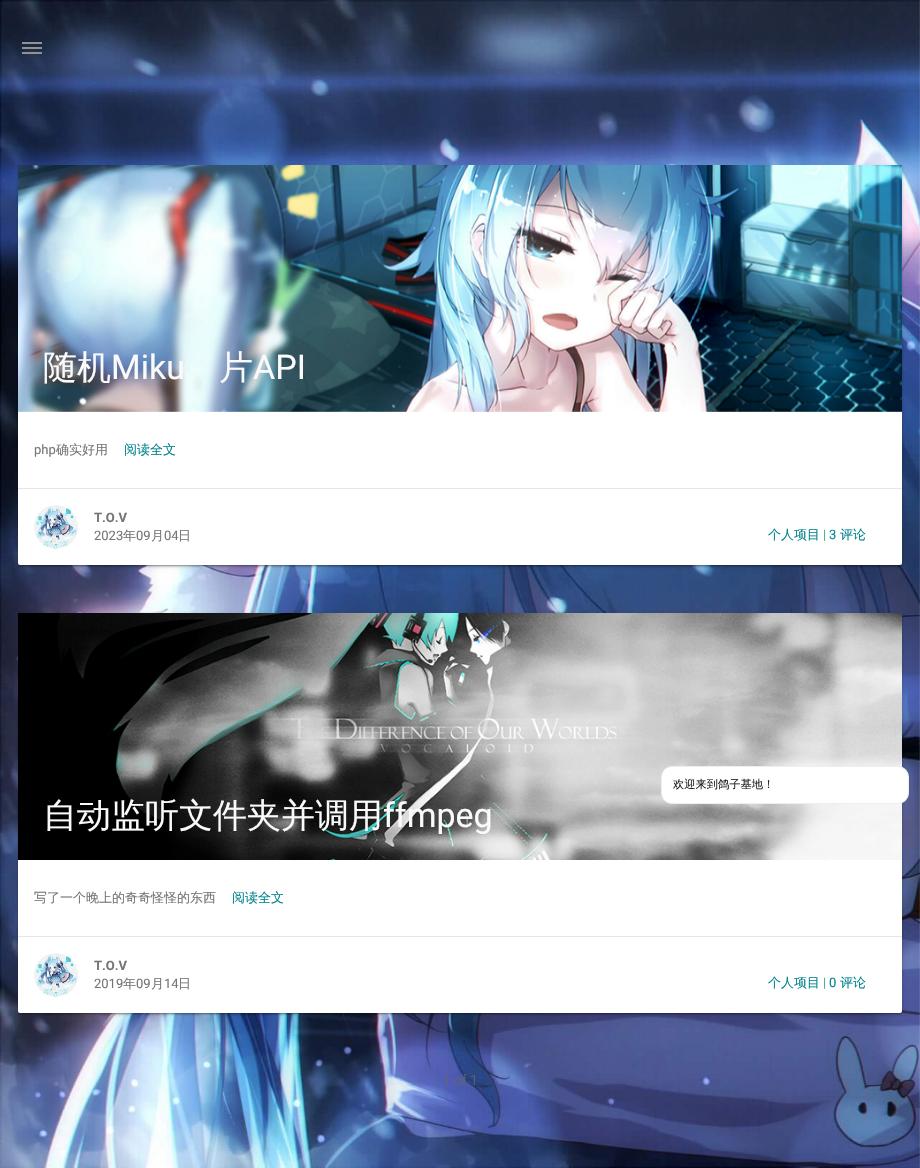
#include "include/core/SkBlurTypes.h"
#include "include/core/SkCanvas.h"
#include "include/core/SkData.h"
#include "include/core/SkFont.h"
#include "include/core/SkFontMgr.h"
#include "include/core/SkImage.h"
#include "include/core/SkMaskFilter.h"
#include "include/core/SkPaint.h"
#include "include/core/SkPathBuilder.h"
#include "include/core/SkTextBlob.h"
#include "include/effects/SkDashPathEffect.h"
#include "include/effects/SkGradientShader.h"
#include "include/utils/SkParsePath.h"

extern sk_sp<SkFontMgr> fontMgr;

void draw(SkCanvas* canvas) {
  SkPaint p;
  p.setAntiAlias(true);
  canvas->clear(SK_ColorWHITE);
  canvas->drawImageRect(SkImages::DeferredFromEncodedData(SkData::MakeFromFileName("images/1.png")), SkRect::MakeLTRB(0, 0, 920, 1168), SkSamplingOptions());
  p.setColor(SkColorSetRGB(146, 146, 146));
  canvas->drawRect(SkRect::MakeLTRB(22, 47, 42, 49), p);
  canvas->drawRect(SkRect::MakeLTRB(22, 42, 42, 44), p);
  canvas->drawRect(SkRect::MakeLTRB(22, 52, 42, 54), p);
  p.setColor(SkColorSetARGB(31, 0, 0, 0));
  p.setMaskFilter(SkMaskFilter::MakeBlur(kNormal_SkBlurStyle, 2.5f));
  canvas->drawRoundRect(SkRect::MakeLTRB(18, 166, 902, 566), 2, 2, p);
  p.setMaskFilter(nullptr);
  p.setColor(SkColorSetARGB(51, 0, 0, 0));
  p.setMaskFilter(SkMaskFilter::MakeBlur(kNormal_SkBlurStyle, 0.5f));
  canvas->drawRect(SkRect::MakeLTRB(20, 170, 900, 566), p);
  p.setMaskFilter(nullptr);
  p.setColor(SkColorSetARGB(36, 0, 0, 0));
  p.setMaskFilter(SkMaskFilter::MakeBlur(kNormal_SkBlurStyle, 1));
  canvas->drawRoundRect(SkRect::MakeLTRB(18, 167, 902, 567), 2, 2, p);
  p.setMaskFilter(nullptr);
  p.setColor(SK_ColorWHITE);
  canvas->drawRoundRect(SkRect::MakeLTRB(18, 165, 902, 565), 2, 2, p);
  canvas->drawImageRect(SkImages::DeferredFromEncodedData(SkData::MakeFromFileName("images/2.png")), SkRect::MakeLTRB(18, 165, 902, 412), SkSamplingOptions());
  p.setColor(SkColorSetRGB(230, 230, 230));
  canvas->drawRect(SkRect::MakeLTRB(18, 488, 902, 489), p);
  canvas->drawImageRect(SkImages::DeferredFromEncodedData(SkData::MakeFromFileName("images/3.png")), SkRect::MakeLTRB(34, 505, 78, 549), SkSamplingOptions());
  p.setColor(SkColorSetARGB(31, 0, 0, 0));
  p.setMaskFilter(SkMaskFilter::MakeBlur(kNormal_SkBlurStyle, 2.5f));
  canvas->drawRoundRect(SkRect::MakeLTRB(18, 614, 902, 1014), 2, 2, p);
  p.setMaskFilter(nullptr);
  p.setColor(SkColorSetARGB(51, 0, 0, 0));
  p.setMaskFilter(SkMaskFilter::MakeBlur(kNormal_SkBlurStyle, 0.5f));
  canvas->drawRect(SkRect::MakeLTRB(20, 618, 900, 1014), p);
  p.setMaskFilter(nullptr);
  p.setColor(SkColorSetARGB(36, 0, 0, 0));
  p.setMaskFilter(SkMaskFilter::MakeBlur(kNormal_SkBlurStyle, 1));
  canvas->drawRoundRect(SkRect::MakeLTRB(18, 615, 902, 1015), 2, 2, p);
  p.setMaskFilter(nullptr);
  p.setColor(SK_ColorWHITE);
  canvas->drawRoundRect(SkRect::MakeLTRB(18, 613, 902, 1013), 2, 2, p);
  canvas->drawImageRect(SkImages::DeferredFromEncodedData(SkData::MakeFromFileName("images/4.png")), SkRect::MakeLTRB(18, 613, 902, 860), SkSamplingOptions());
  p.setColor(SkColorSetRGB(230, 230, 230));
  canvas->drawRect(SkRect::MakeLTRB(18, 936, 902, 937), p);
  canvas->drawImageRect(SkImages::DeferredFromEncodedData(SkData::MakeFromFileName("images/3.png")), SkRect::MakeLTRB(34, 953, 78, 997), SkSamplingOptions());
  p.setColor(SK_ColorWHITE);
  canvas->drawRoundRect(SkRect::MakeLTRB(661.5f, 766.5f, 908.5f, 803.5f), 10.5f, 10.5f, p);
  p.setStyle(SkPaint::kStroke_Style);
  p.setStrokeWidth(1);
  p.setColor(SkColorSetRGB(238, 238, 238));
  canvas->drawRoundRect(SkRect::MakeLTRB(661.5f, 766.5f, 908.5f, 803.5f), 10.5f, 10.5f, p);
  SkFont font1(fontMgr->matchFamilyStyle("WenQuanYi Zen Hei", SkFontStyle(500, SkFontStyle::kNormal_Width, SkFontStyle::kUpright_Slant)), 34);
  font1.setSubpixel(true);
  p.setStyle(SkPaint::kFill_Style);
  p.setColor(SkColorSetRGB(250, 250, 250));
  canvas->drawString("随机", 43, 379, font1, p);
  SkFont font2(fontMgr->matchFamilyStyle("Roboto", SkFontStyle::Normal()), 34);
  font2.setSubpixel(true);
  canvas->drawString("Miku", 111, 379, font2, p);
  canvas->drawString("片", 219, 379, font1, p);
  canvas->drawString("API", 253, 379, font2, p);
  SkFont font3(fontMgr->matchFamilyStyle("Roboto", SkFontStyle::Normal()), 13);
  font3.setSubpixel(true);
  p.setColor(SkColorSetRGB(117, 117, 117));
  canvas->drawString("php", 34, 454, font3, p);
  SkFont font4(fontMgr->matchFamilyStyle("WenQuanYi Zen Hei", SkFontStyle(500, SkFontStyle::kNormal_Width, SkFontStyle::kUpright_Slant)), 13);
  font4.setSubpixel(true);
  canvas->drawString("确实好用", 56, 454, font4, p);
  p.setColor(SkColorSetRGB(0, 131, 143));
  canvas->drawString("阅读全文", 124, 454, font4, p);
  SkFont font5(fontMgr->matchFamilyStyle("Roboto", SkFontStyle::Bold()), 13);
  font5.setSubpixel(true);
  p.setColor(SkColorSetRGB(117, 117, 117));
  canvas->drawString("T.O.V", 94, 522, font5, p);
  canvas->drawString("2023", 94, 540, font3, p);
  canvas->drawString("年", 123, 540, font4, p);
  canvas->drawString("09", 136, 540, font3, p);
  canvas->drawString("月", 151, 540, font4, p);
  canvas->drawString("04", 164, 540, font3, p);
  canvas->drawString("日", 178, 540, font4, p);
  p.setColor(SkColorSetRGB(0, 131, 143));
  canvas->drawString("个人项目", 768, 539, font4, p);
  p.setColor(SkColorSetRGB(71, 167, 157));
  canvas->drawString("|", 823, 539, font3, p);
  p.setColor(SkColorSetRGB(0, 131, 143));
  canvas->drawString("3", 829, 539, font3, p);
  canvas->drawString("评论", 840, 539, font4, p);
  p.setColor(SkColorSetRGB(250, 250, 250));
  canvas->drawString("自动监听文件夹并调用", 43, 827, font1, p);
  canvas->drawString("ffmpeg", 383, 827, font2, p);
  p.setColor(SkColorSetRGB(117, 117, 117));
  canvas->drawString("写了一个晚上的奇奇怪怪的东西", 34, 902, font4, p);
  p.setColor(SkColorSetRGB(0, 131, 143));
  canvas->drawString("阅读全文", 232, 902, font4, p);
  p.setColor(SkColorSetRGB(117, 117, 117));
  canvas->drawString("T.O.V", 94, 970, font5, p);
  canvas->drawString("2019", 94, 988, font3, p);
  canvas->drawString("年", 123, 988, font4, p);
  canvas->drawString("09", 136, 988, font3, p);
  canvas->drawString("月", 151, 988, font4, p);
  canvas->drawString("14", 164, 988, font3, p);
  canvas->drawString("日", 178, 988, font4, p);
  p.setColor(SkColorSetRGB(0, 131, 143));
  canvas->drawString("个人项目", 768, 987, font4, p);
  p.setColor(SkColorSetRGB(71, 167, 157));
  canvas->drawString("|", 823, 987, font3, p);
  p.setColor(SkColorSetRGB(0, 131, 143));
  canvas->drawString("0", 829, 987, font3, p);
  canvas->drawString("评论", 840, 987, font4, p);
  SkFont font6(fontMgr->matchFamilyStyle("Roboto", SkFontStyle(300, SkFontStyle::kNormal_Width, SkFontStyle::kUpright_Slant)), 14);
  font6.setSubpixel(true);
  p.setColor(SkColorSetRGB(102, 102, 102));
  canvas->drawString("1 of 1", 443, 1085, font6, p);
  SkFont font7(fontMgr->matchFamilyStyle("WenQuanYi Zen Hei", SkFontStyle(500, SkFontStyle::kNormal_Width, SkFontStyle::kUpright_Slant)), 11.25f);
  font7.setSubpixel(true);
  p.setColor(SkColorSetRGB(33, 33, 33));
  canvas->drawString("欢迎来到鸽子基地！", 673, 788, font7, p);
}
